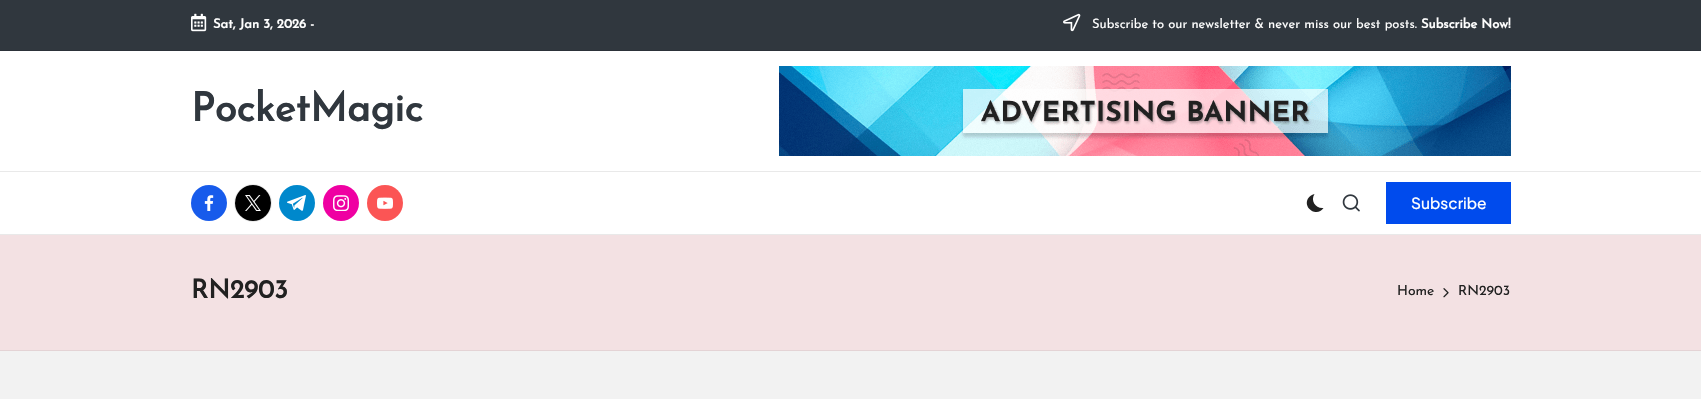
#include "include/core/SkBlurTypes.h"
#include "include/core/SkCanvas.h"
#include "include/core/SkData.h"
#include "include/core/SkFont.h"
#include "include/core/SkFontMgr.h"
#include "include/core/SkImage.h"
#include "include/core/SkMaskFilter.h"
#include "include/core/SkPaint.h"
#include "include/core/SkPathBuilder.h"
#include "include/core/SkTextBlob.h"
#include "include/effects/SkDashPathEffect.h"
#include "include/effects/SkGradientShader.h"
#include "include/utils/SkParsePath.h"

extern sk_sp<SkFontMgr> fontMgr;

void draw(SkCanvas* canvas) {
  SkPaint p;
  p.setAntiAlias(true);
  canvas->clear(SkColorSetRGB(242, 242, 242));
  p.setColor(SkColorSetRGB(48, 55, 62));
  canvas->drawRect(SkRect::MakeLTRB(0, 0, 1701, 50), p);
  p.setColor(SkColorSetRGB(44, 50, 57));
  canvas->drawRect(SkRect::MakeLTRB(0, 50, 1701, 51), p);
  canvas->drawImageRect(SkImages::DeferredFromEncodedData(SkData::MakeFromFileName("images/1.png")), SkRect::MakeLTRB(191, 13, 207, 32), SkSamplingOptions());
  canvas->drawImageRect(SkImages::DeferredFromEncodedData(SkData::MakeFromFileName("images/2.png")), SkRect::MakeLTRB(1063, 13, 1081, 32), SkSamplingOptions());
  p.setColor(SK_ColorWHITE);
  canvas->drawRect(SkRect::MakeLTRB(0, 51, 1701, 171), p);
  canvas->drawImageRect(SkImages::DeferredFromEncodedData(SkData::MakeFromFileName("images/3.png")), SkRect::MakeLTRB(779, 66, 1511, 156), SkSamplingOptions());
  canvas->drawRect(SkRect::MakeLTRB(0, 172, 1701, 234), p);
  p.setColor(SkColorSetRGB(233, 233, 233));
  canvas->drawRect(SkRect::MakeLTRB(0, 171, 1701, 172), p);
  canvas->drawRect(SkRect::MakeLTRB(0, 234, 1701, 235), p);
  p.setColor(SkColorSetRGB(23, 91, 235));
  canvas->drawCircle(209, 203, 18, p);
  canvas->drawImageRect(SkImages::DeferredFromEncodedData(SkData::MakeFromFileName("images/4.png")), SkRect::MakeLTRB(204, 195, 214, 211), SkSamplingOptions());
  p.setColor(SK_ColorBLACK);
  canvas->drawCircle(253, 203, 18, p);
  p.setStyle(SkPaint::kStroke_Style);
  p.setStrokeWidth(1);
  p.setColor(SkColorSetARGB(77, 190, 190, 190));
  canvas->drawCircle(253, 203, 18.5f, p);
  canvas->drawImageRect(SkImages::DeferredFromEncodedData(SkData::MakeFromFileName("images/5.png")), SkRect::MakeLTRB(245, 195, 261, 211), SkSamplingOptions());
  p.setStyle(SkPaint::kFill_Style);
  p.setColor(SkColorSetRGB(0, 136, 204));
  canvas->drawCircle(297, 203, 18, p);
  canvas->drawImageRect(SkImages::DeferredFromEncodedData(SkData::MakeFromFileName("images/6.png")), SkRect::MakeLTRB(287, 195, 306, 211), SkSamplingOptions());
  p.setColor(SkColorSetRGB(239, 0, 162));
  canvas->drawCircle(341, 203, 18, p);
  canvas->drawImageRect(SkImages::DeferredFromEncodedData(SkData::MakeFromFileName("images/7.png")), SkRect::MakeLTRB(333, 195, 349, 211), SkSamplingOptions());
  p.setColor(SkColorSetRGB(251, 85, 85));
  canvas->drawCircle(385, 203, 18, p);
  canvas->drawImageRect(SkImages::DeferredFromEncodedData(SkData::MakeFromFileName("images/8.png")), SkRect::MakeLTRB(377, 197, 393, 209), SkSamplingOptions());
  p.setColor(SkColorSetRGB(33, 33, 33));
  canvas->drawPath(SkPathBuilder().moveTo(1323.5f, 208).cubicTo(1316, 209, 1310, 201, 1314.5f, 194).cubicTo(1311.5f, 194.5f, 1309.5f, 196.5f, 1308, 198.5f).cubicTo(1302.5f, 208.5f, 1317.5f, 217.5f, 1323.5f, 208).close().detach(), p);
  canvas->drawImageRect(SkImages::DeferredFromEncodedData(SkData::MakeFromFileName("images/9.png")), SkRect::MakeLTRB(1342, 194, 1360, 212), SkSamplingOptions());
  p.setColor(SkColorSetRGB(0, 75, 237));
  canvas->drawRect(SkRect::MakeLTRB(1386, 182, 1511, 224), p);
  p.setColor(SkColorSetRGB(243, 225, 227));
  canvas->drawRect(SkRect::MakeLTRB(0, 235, 1701, 350), p);
  p.setColor(SkColorSetRGB(228, 211, 213));
  canvas->drawRect(SkRect::MakeLTRB(0, 350, 1701, 351), p);
  canvas->drawImageRect(SkImages::DeferredFromEncodedData(SkData::MakeFromFileName("images/10.png")), SkRect::MakeLTRB(1443, 288, 1449, 298), SkSamplingOptions());
  SkFont font1(fontMgr->matchFamilyStyle("Josefin Sans", SkFontStyle::Bold()), 13);
  font1.setSubpixel(true);
  p.setColor(SK_ColorWHITE);
  canvas->drawString("Sat, Jan 3, 2026 -", 213, 28, font1, p);
  SkFont font2(fontMgr->matchFamilyStyle("Josefin Sans", SkFontStyle(100, SkFontStyle::kNormal_Width, SkFontStyle::kUpright_Slant)), 13);
  font2.setSubpixel(true);
  canvas->drawString("Subscribe to our newsletter & never miss our best posts.", 1092, 28, font2, p);
  canvas->drawString("Subscribe Now!", 1421, 28, font1, p);
  SkFont font3(fontMgr->matchFamilyStyle("Josefin Sans", SkFontStyle::Bold()), 40);
  font3.setSubpixel(true);
  p.setColor(SkColorSetRGB(48, 55, 62));
  canvas->drawString("PocketMagic", 191, 121, font3, p);
  SkFont font4(fontMgr->matchFamilyStyle("Plus Jakarta Sans", SkFontStyle(500, SkFontStyle::kNormal_Width, SkFontStyle::kUpright_Slant)), 15.5f);
  font4.setSubpixel(true);
  p.setColor(SK_ColorWHITE);
  canvas->drawString("Subscribe", 1411, 209, font4, p);
  SkFont font5(fontMgr->matchFamilyStyle("Josefin Sans", SkFontStyle::Bold()), 26);
  font5.setSubpixel(true);
  p.setColor(SkColorSetRGB(33, 33, 33));
  canvas->drawString("RN2903", 191, 298, font5, p);
  SkFont font6(fontMgr->matchFamilyStyle("Josefin Sans", SkFontStyle(100, SkFontStyle::kNormal_Width, SkFontStyle::kUpright_Slant)), 14);
  font6.setSubpixel(true);
  canvas->drawString("Home", 1397, 295, font6, p);
  canvas->drawString("RN2903", 1458, 295, font6, p);
}
